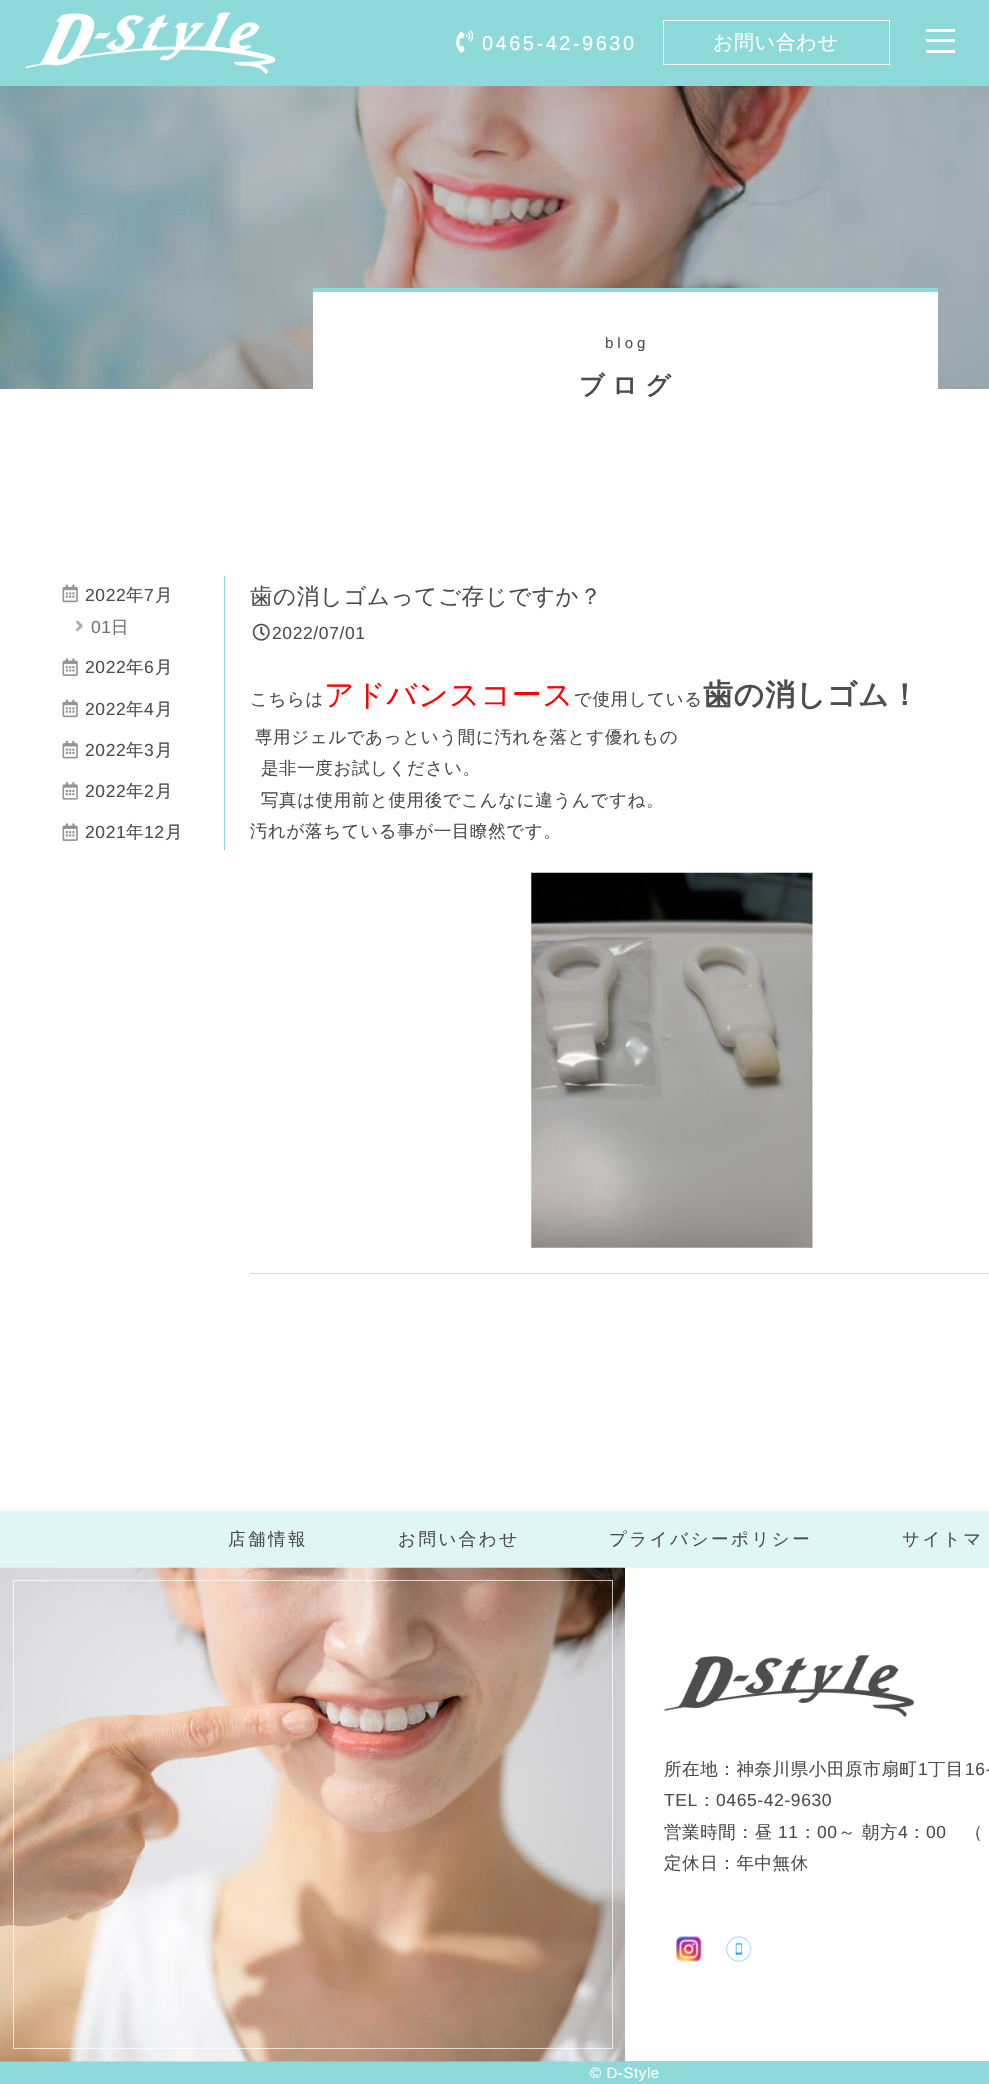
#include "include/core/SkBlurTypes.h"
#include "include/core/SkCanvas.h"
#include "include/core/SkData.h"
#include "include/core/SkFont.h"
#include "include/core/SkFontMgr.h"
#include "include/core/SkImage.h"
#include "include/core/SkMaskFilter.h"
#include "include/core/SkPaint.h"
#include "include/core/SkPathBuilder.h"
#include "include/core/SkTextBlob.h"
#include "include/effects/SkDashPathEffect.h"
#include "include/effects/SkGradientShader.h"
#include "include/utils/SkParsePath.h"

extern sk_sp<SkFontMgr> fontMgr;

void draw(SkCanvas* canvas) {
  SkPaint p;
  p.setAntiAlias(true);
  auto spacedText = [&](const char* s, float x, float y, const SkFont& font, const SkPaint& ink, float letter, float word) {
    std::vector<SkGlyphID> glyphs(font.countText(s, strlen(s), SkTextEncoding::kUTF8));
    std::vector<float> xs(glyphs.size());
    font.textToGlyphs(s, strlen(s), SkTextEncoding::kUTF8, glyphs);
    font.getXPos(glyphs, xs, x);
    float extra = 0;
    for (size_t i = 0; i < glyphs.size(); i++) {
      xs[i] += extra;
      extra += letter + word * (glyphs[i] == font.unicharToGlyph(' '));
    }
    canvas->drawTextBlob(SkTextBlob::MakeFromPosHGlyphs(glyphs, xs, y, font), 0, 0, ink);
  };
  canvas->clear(SK_ColorWHITE);
  p.setColor(SkColorSetRGB(142, 217, 217));
  canvas->drawRect(SkRect::MakeLTRB(0, 0, 989, 86), p);
  canvas->drawImageRect(SkImages::DeferredFromEncodedData(SkData::MakeFromFileName("images/1.png")), SkRect::MakeLTRB(25, 12, 275, 74), SkSamplingOptions());
  canvas->drawImageRect(SkImages::DeferredFromEncodedData(SkData::MakeFromFileName("images/2.png")), SkRect::MakeLTRB(456, 30, 474, 53), SkSamplingOptions());
  p.setStyle(SkPaint::kStroke_Style);
  p.setStrokeWidth(1);
  p.setColor(SK_ColorWHITE);
  canvas->drawRect(SkRect::MakeLTRB(663.5f, 20.5f, 889.5f, 64.5f), p);
  p.setStyle(SkPaint::kFill_Style);
  canvas->drawRect(SkRect::MakeLTRB(926, 29, 955, 32), p);
  canvas->drawRect(SkRect::MakeLTRB(926, 39, 955, 42), p);
  canvas->drawRect(SkRect::MakeLTRB(926, 50, 955, 53), p);
  canvas->drawImageRect(SkImages::DeferredFromEncodedData(SkData::MakeFromFileName("images/3.png")), SkRect::MakeLTRB(0, 86, 989, 389), SkSamplingOptions());
  canvas->drawRect(SkRect::MakeLTRB(313, 292, 938, 389), p);
  p.setColor(SkColorSetRGB(142, 217, 217));
  canvas->drawRect(SkRect::MakeLTRB(313, 288, 938, 292), p);
  canvas->drawRect(SkRect::MakeLTRB(224, 576, 225, 850), p);
  canvas->drawImageRect(SkImages::DeferredFromEncodedData(SkData::MakeFromFileName("images/4.png")), SkRect::MakeLTRB(62, 584, 78, 603), SkSamplingOptions());
  canvas->drawImageRect(SkImages::DeferredFromEncodedData(SkData::MakeFromFileName("images/5.png")), SkRect::MakeLTRB(75, 620, 83, 632), SkSamplingOptions());
  canvas->drawImageRect(SkImages::DeferredFromEncodedData(SkData::MakeFromFileName("images/6.png")), SkRect::MakeLTRB(62, 658, 78, 676), SkSamplingOptions());
  canvas->drawImageRect(SkImages::DeferredFromEncodedData(SkData::MakeFromFileName("images/4.png")), SkRect::MakeLTRB(62, 699, 78, 718), SkSamplingOptions());
  canvas->drawImageRect(SkImages::DeferredFromEncodedData(SkData::MakeFromFileName("images/7.png")), SkRect::MakeLTRB(62, 740, 78, 759), SkSamplingOptions());
  canvas->drawImageRect(SkImages::DeferredFromEncodedData(SkData::MakeFromFileName("images/8.png")), SkRect::MakeLTRB(62, 782, 78, 800), SkSamplingOptions());
  canvas->drawImageRect(SkImages::DeferredFromEncodedData(SkData::MakeFromFileName("images/6.png")), SkRect::MakeLTRB(62, 823, 78, 841), SkSamplingOptions());
  p.setColor(SkColorSetRGB(247, 216, 158));
  canvas->drawRect(SkRect::MakeLTRB(250, 1273, 989, 1274), p);
  canvas->drawImageRect(SkImages::DeferredFromEncodedData(SkData::MakeFromFileName("images/9.png")), SkRect::MakeLTRB(252, 623, 270, 641), SkSamplingOptions());
  canvas->drawImageRect(SkImages::DeferredFromEncodedData(SkData::MakeFromFileName("images/10.png")), SkRect::MakeLTRB(531, 872, 813, 1248), SkSamplingOptions());
  p.setColor(SkColorSetRGB(224, 245, 245));
  canvas->drawRect(SkRect::MakeLTRB(0, 1511, 989, 1568), p);
  p.setColor(SkColorSetRGB(142, 217, 217));
  canvas->drawRect(SkRect::MakeLTRB(0, 2061, 989, 2084), p);
  canvas->drawImageRect(SkImages::DeferredFromEncodedData(SkData::MakeFromFileName("images/11.png")), SkRect::MakeLTRB(0, 1567, 625, 2062), SkSamplingOptions());
  p.setStyle(SkPaint::kStroke_Style);
  p.setColor(SkColorSetARGB(179, 255, 255, 255));
  canvas->drawRect(SkRect::MakeLTRB(13.5f, 1580.5f, 612.5f, 2048.5f), p);
  canvas->drawImageRect(SkImages::DeferredFromEncodedData(SkData::MakeFromFileName("images/12.png")), SkRect::MakeLTRB(663, 1655, 914, 1717), SkSamplingOptions());
  canvas->drawImageRect(SkImages::DeferredFromEncodedData(SkData::MakeFromFileName("images/13.png")), SkRect::MakeLTRB(676, 1936, 702, 1962), SkSamplingOptions());
  canvas->drawImageRect(SkImages::DeferredFromEncodedData(SkData::MakeFromFileName("images/14.png")), SkRect::MakeLTRB(726, 1936, 752, 1962), SkSamplingOptions());
  SkFont font1(fontMgr->matchFamilyStyle("Liberation Sans", SkFontStyle::Normal()), 20);
  font1.setSubpixel(true);
  p.setStyle(SkPaint::kFill_Style);
  p.setColor(SK_ColorWHITE);
  spacedText("0465-42-9630", 482, 50, font1, p, 2.5f, 0);
  SkFont font2(fontMgr->matchFamilyStyle("WenQuanYi Zen Hei", SkFontStyle(500, SkFontStyle::kNormal_Width, SkFontStyle::kUpright_Slant)), 20);
  font2.setSubpixel(true);
  spacedText("お問い合わせ", 713, 49, font2, p, 0.6f, 0);
  SkFont font3(fontMgr->matchFamilyStyle("Liberation Sans", SkFontStyle::Normal()), 15);
  font3.setSubpixel(true);
  p.setColor(SkColorSetRGB(77, 77, 77));
  spacedText("blog", 605, 348, font3, p, 4, 0);
  SkFont font4(fontMgr->matchFamilyStyle("WenQuanYi Zen Hei", SkFontStyle::Bold()), 25);
  font4.setSubpixel(true);
  spacedText("ブログ", 579, 394, font4, p, 7.5f, 0);
  SkFont font5(fontMgr->matchFamilyStyle("Liberation Sans", SkFontStyle::Normal()), 17.5f);
  font5.setSubpixel(true);
  spacedText("2022", 85, 601, font5, p, 0.6f, 0);
  SkFont font6(fontMgr->matchFamilyStyle("WenQuanYi Zen Hei", SkFontStyle(500, SkFontStyle::kNormal_Width, SkFontStyle::kUpright_Slant)), 17.5f);
  font6.setSubpixel(true);
  spacedText("年", 126, 601, font6, p, 0.6f, 0);
  spacedText("7", 144, 601, font5, p, 0.6f, 0);
  spacedText("月", 155, 601, font6, p, 0.6f, 0);
  p.setColor(SkColorSetRGB(113, 113, 113));
  spacedText("01", 91, 633, font5, p, 0.6f, 0);
  spacedText("日", 111, 633, font6, p, 0.6f, 0);
  p.setColor(SkColorSetRGB(77, 77, 77));
  spacedText("2022", 85, 673, font5, p, 0.6f, 0);
  spacedText("年", 126, 673, font6, p, 0.6f, 0);
  spacedText("6", 144, 673, font5, p, 0.6f, 0);
  spacedText("月", 155, 673, font6, p, 0.6f, 0);
  spacedText("2022", 85, 715, font5, p, 0.6f, 0);
  spacedText("年", 126, 715, font6, p, 0.6f, 0);
  spacedText("4", 144, 715, font5, p, 0.6f, 0);
  spacedText("月", 155, 715, font6, p, 0.6f, 0);
  spacedText("2022", 85, 756, font5, p, 0.6f, 0);
  spacedText("年", 126, 756, font6, p, 0.6f, 0);
  spacedText("3", 144, 756, font5, p, 0.6f, 0);
  spacedText("月", 155, 756, font6, p, 0.6f, 0);
  spacedText("2022", 85, 797, font5, p, 0.6f, 0);
  spacedText("年", 126, 797, font6, p, 0.6f, 0);
  spacedText("2", 144, 797, font5, p, 0.6f, 0);
  spacedText("月", 155, 797, font6, p, 0.6f, 0);
  spacedText("2021", 85, 838, font5, p, 0.6f, 0);
  spacedText("年", 126, 838, font6, p, 0.6f, 0);
  spacedText("12", 144, 838, font5, p, 0.6f, 0);
  spacedText("月", 165, 838, font6, p, 0.6f, 0);
  SkFont font7(fontMgr->matchFamilyStyle("WenQuanYi Zen Hei", SkFontStyle(500, SkFontStyle::kNormal_Width, SkFontStyle::kUpright_Slant)), 22.5f);
  font7.setSubpixel(true);
  spacedText("歯の消しゴムってご存じですか？", 250, 604, font7, p, 0.6f, 0);
  spacedText("2022/07/01", 272, 639, font5, p, 0.6f, 0);
  spacedText("こちらは", 250, 705, font6, p, 0.6f, 0);
  SkFont font8(fontMgr->matchFamilyStyle("WenQuanYi Zen Hei", SkFontStyle(500, SkFontStyle::kNormal_Width, SkFontStyle::kUpright_Slant)), 30);
  font8.setSubpixel(true);
  p.setColor(SkColorSetRGB(255, 0, 0));
  spacedText("アドバンスコース", 324, 705, font8, p, 0.6f, 0);
  p.setColor(SkColorSetRGB(77, 77, 77));
  spacedText("で使用している", 574, 705, font6, p, 0.6f, 0);
  SkFont font9(fontMgr->matchFamilyStyle("WenQuanYi Zen Hei", SkFontStyle::Bold()), 30);
  font9.setSubpixel(true);
  spacedText("歯の消しゴム！", 703, 705, font9, p, 0.6f, 0);
  spacedText("専用ジェルであっという間に汚れを落とす優れもの", 255, 743, font6, p, 0.6f, 0);
  spacedText("是非一度お試しください。", 261, 774, font6, p, 0.6f, 0);
  spacedText("写真は使用前と使用後でこんなに違うんですね。", 261, 806, font6, p, 0.6f, 0);
  spacedText("汚れが落ちている事が一目瞭然です。", 250, 837, font6, p, 0.6f, 0);
  spacedText("店舗情報", 228, 1545, font6, p, 2.5f, 0);
  spacedText("お問い合わせ", 398, 1545, font6, p, 2.5f, 0);
  spacedText("プライバシーポリシー", 609, 1545, font6, p, 2.5f, 0);
  spacedText("サイトマ", 902, 1545, font6, p, 2.5f, 0);
  spacedText("所在地：神奈川県小田原市扇町", 664, 1775, font6, p, 0.6f, 0);
  spacedText("1", 918, 1775, font5, p, 0.6f, 0);
  spacedText("丁目", 928, 1775, font6, p, 0.6f, 0);
  spacedText("16-", 965, 1775, font5, p, 0.6f, 0);
  spacedText("TEL", 664, 1806, font5, p, 0.6f, 0);
  spacedText("：", 698, 1806, font6, p, 0.6f, 0);
  spacedText("0465-42-9630", 716, 1806, font5, p, 0.6f, 0);
  spacedText("営業時間：昼", 664, 1838, font6, p, 0.6f, 0);
  spacedText("11", 778, 1838, font5, p, 0.6f, 0);
  spacedText("：", 799, 1838, font6, p, 0.6f, 0);
  spacedText("00", 817, 1838, font5, p, 0.6f, 0);
  spacedText("～ 朝方", 838, 1838, font6, p, 0.6f, 0);
  spacedText("4", 898, 1838, font5, p, 0.6f, 0);
  spacedText("：", 908, 1838, font6, p, 0.6f, 0);
  spacedText("00", 926, 1838, font5, p, 0.6f, 0);
  spacedText("（", 965, 1838, font6, p, 0.6f, 0);
  spacedText("定休日：年中無休", 664, 1869, font6, p, 0.6f, 0);
  p.setColor(SK_ColorWHITE);
  spacedText("© D-Style", 590, 2078, font3, p, 0.6f, 0);
}
